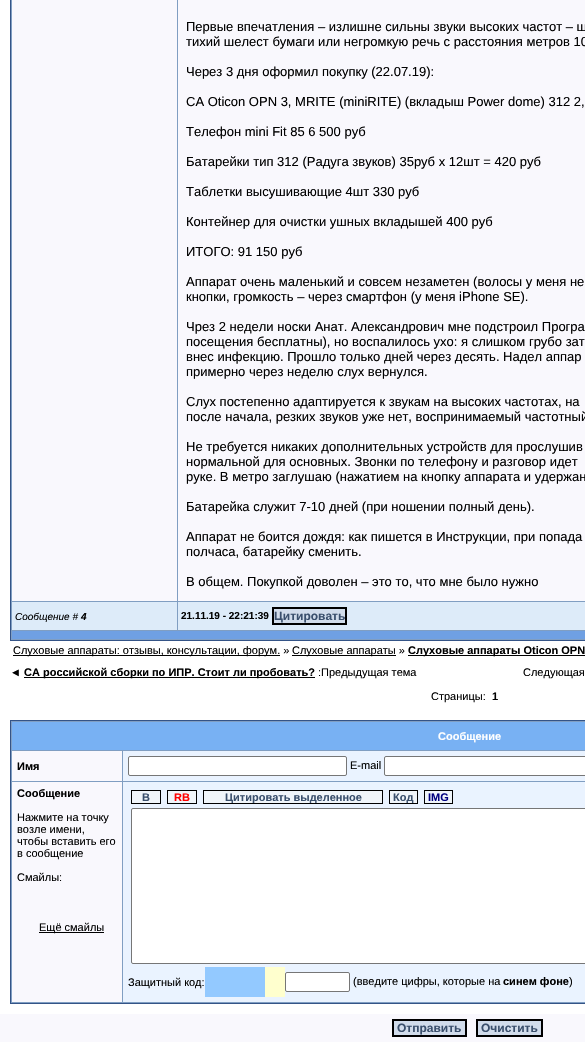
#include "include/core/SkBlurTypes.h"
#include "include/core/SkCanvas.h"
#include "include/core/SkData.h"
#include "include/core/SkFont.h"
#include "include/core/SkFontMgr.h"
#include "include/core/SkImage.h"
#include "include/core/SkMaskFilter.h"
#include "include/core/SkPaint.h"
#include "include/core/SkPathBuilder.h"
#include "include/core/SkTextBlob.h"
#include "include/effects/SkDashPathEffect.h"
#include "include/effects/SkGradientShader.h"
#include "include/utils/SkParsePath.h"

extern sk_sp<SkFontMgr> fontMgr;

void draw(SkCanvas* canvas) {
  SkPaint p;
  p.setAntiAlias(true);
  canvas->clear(SK_ColorWHITE);
  p.setColor(SkColorSetRGB(128, 158, 194));
  canvas->drawRect(SkRect::MakeLTRB(10.5f, -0.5f, 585.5f, 640.5f), p);
  p.setStyle(SkPaint::kStroke_Style);
  p.setStrokeWidth(1);
  p.setColor(SkColorSetRGB(52, 84, 135));
  canvas->drawRect(SkRect::MakeLTRB(10.5f, -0.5f, 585.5f, 640.5f), p);
  p.setStyle(SkPaint::kFill_Style);
  p.setColor(SkColorSetRGB(249, 248, 253));
  canvas->drawRect(SkRect::MakeLTRB(12, 0, 177, 601), p);
  canvas->drawRect(SkRect::MakeLTRB(178, 0, 585, 601), p);
  p.setColor(SkColorSetRGB(221, 235, 249));
  canvas->drawRect(SkRect::MakeLTRB(12, 602, 177, 630), p);
  canvas->drawRect(SkRect::MakeLTRB(178, 602, 585, 630), p);
  p.setColor(SkColorSetRGB(209, 220, 235));
  canvas->drawRect(SkRect::MakeLTRB(273, 608, 346, 624), p);
  p.setStyle(SkPaint::kStroke_Style);
  p.setStrokeWidth(2);
  p.setColor(SK_ColorBLACK);
  canvas->drawRect(SkRect::MakeLTRB(273, 608, 346, 624), p);
  p.setStyle(SkPaint::kFill_Style);
  p.setColor(SkColorSetRGB(111, 160, 227));
  canvas->drawRect(SkRect::MakeLTRB(12, 631, 585, 639), p);
  p.setColor(SK_ColorBLACK);
  canvas->drawRect(SkRect::MakeLTRB(13, 655, 280, 656), p);
  canvas->drawRect(SkRect::MakeLTRB(292, 655, 396, 656), p);
  canvas->drawRect(SkRect::MakeLTRB(408, 655, 585, 656), p);
  canvas->drawRect(SkRect::MakeLTRB(24, 677, 315, 678), p);
  p.setColor(SkColorSetRGB(128, 158, 194));
  canvas->drawRect(SkRect::MakeLTRB(10.5f, 720.5f, 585.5f, 1003.5f), p);
  p.setStyle(SkPaint::kStroke_Style);
  p.setStrokeWidth(1);
  p.setColor(SkColorSetRGB(52, 84, 135));
  canvas->drawRect(SkRect::MakeLTRB(10.5f, 720.5f, 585.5f, 1003.5f), p);
  p.setStyle(SkPaint::kFill_Style);
  p.setColor(SkColorSetRGB(120, 177, 243));
  canvas->drawRect(SkRect::MakeLTRB(12, 722, 585, 750), p);
  p.setColor(SkColorSetRGB(249, 248, 253));
  canvas->drawRect(SkRect::MakeLTRB(12, 751, 122, 781), p);
  p.setColor(SkColorSetRGB(234, 243, 255));
  canvas->drawRect(SkRect::MakeLTRB(123, 751, 585, 781), p);
  p.setColor(SK_ColorWHITE);
  canvas->drawRoundRect(SkRect::MakeLTRB(128.5f, 756.5f, 346.5f, 775.5f), 1.5f, 1.5f, p);
  p.setStyle(SkPaint::kStroke_Style);
  p.setColor(SkColorSetRGB(118, 118, 118));
  canvas->drawRoundRect(SkRect::MakeLTRB(128.5f, 756.5f, 346.5f, 775.5f), 1.5f, 1.5f, p);
  p.setStyle(SkPaint::kFill_Style);
  p.setColor(SK_ColorWHITE);
  canvas->drawRoundRect(SkRect::MakeLTRB(384.5f, 756.5f, 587.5f, 775.5f), 1.5f, 1.5f, p);
  p.setStyle(SkPaint::kStroke_Style);
  p.setColor(SkColorSetRGB(118, 118, 118));
  canvas->drawRoundRect(SkRect::MakeLTRB(384.5f, 756.5f, 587.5f, 775.5f), 1.5f, 1.5f, p);
  p.setStyle(SkPaint::kFill_Style);
  p.setColor(SkColorSetRGB(249, 248, 253));
  canvas->drawRect(SkRect::MakeLTRB(12, 782, 122, 1002), p);
  p.setColor(SK_ColorBLACK);
  canvas->drawRect(SkRect::MakeLTRB(39, 932, 104, 933), p);
  p.setColor(SkColorSetRGB(234, 243, 255));
  canvas->drawRect(SkRect::MakeLTRB(123, 782, 585, 1002), p);
  p.setColor(SkColorSetRGB(240, 245, 250));
  canvas->drawRect(SkRect::MakeLTRB(131.5f, 790.5f, 160.5f, 803.5f), p);
  p.setStyle(SkPaint::kStroke_Style);
  p.setColor(SK_ColorBLACK);
  canvas->drawRect(SkRect::MakeLTRB(131.5f, 790.5f, 160.5f, 803.5f), p);
  p.setStyle(SkPaint::kFill_Style);
  p.setColor(SkColorSetRGB(240, 245, 250));
  canvas->drawRect(SkRect::MakeLTRB(167.5f, 790.5f, 196.5f, 803.5f), p);
  p.setStyle(SkPaint::kStroke_Style);
  p.setColor(SK_ColorBLACK);
  canvas->drawRect(SkRect::MakeLTRB(167.5f, 790.5f, 196.5f, 803.5f), p);
  p.setStyle(SkPaint::kFill_Style);
  p.setColor(SkColorSetRGB(240, 245, 250));
  canvas->drawRect(SkRect::MakeLTRB(203.5f, 790.5f, 382.5f, 803.5f), p);
  p.setStyle(SkPaint::kStroke_Style);
  p.setColor(SK_ColorBLACK);
  canvas->drawRect(SkRect::MakeLTRB(203.5f, 790.5f, 382.5f, 803.5f), p);
  p.setStyle(SkPaint::kFill_Style);
  p.setColor(SkColorSetRGB(240, 245, 250));
  canvas->drawRect(SkRect::MakeLTRB(389.5f, 790.5f, 417.5f, 803.5f), p);
  p.setStyle(SkPaint::kStroke_Style);
  p.setColor(SK_ColorBLACK);
  canvas->drawRect(SkRect::MakeLTRB(389.5f, 790.5f, 417.5f, 803.5f), p);
  p.setStyle(SkPaint::kFill_Style);
  p.setColor(SkColorSetRGB(240, 245, 250));
  canvas->drawRect(SkRect::MakeLTRB(424.5f, 790.5f, 452.5f, 803.5f), p);
  p.setStyle(SkPaint::kStroke_Style);
  p.setColor(SK_ColorBLACK);
  canvas->drawRect(SkRect::MakeLTRB(424.5f, 790.5f, 452.5f, 803.5f), p);
  p.setStyle(SkPaint::kFill_Style);
  p.setColor(SK_ColorWHITE);
  canvas->drawRoundRect(SkRect::MakeLTRB(131.5f, 808.5f, 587.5f, 963.5f), 1.5f, 1.5f, p);
  p.setStyle(SkPaint::kStroke_Style);
  p.setColor(SkColorSetRGB(118, 118, 118));
  canvas->drawRoundRect(SkRect::MakeLTRB(131.5f, 808.5f, 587.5f, 963.5f), 1.5f, 1.5f, p);
  p.setStyle(SkPaint::kFill_Style);
  p.setColor(SkColorSetRGB(147, 201, 255));
  canvas->drawRect(SkRect::MakeLTRB(205, 967, 265, 997), p);
  p.setColor(SkColorSetRGB(255, 255, 206));
  canvas->drawRect(SkRect::MakeLTRB(265, 967, 285, 997), p);
  p.setColor(SK_ColorWHITE);
  canvas->drawRoundRect(SkRect::MakeLTRB(285.5f, 972.5f, 349.5f, 991.5f), 1.5f, 1.5f, p);
  p.setStyle(SkPaint::kStroke_Style);
  p.setColor(SkColorSetRGB(118, 118, 118));
  canvas->drawRoundRect(SkRect::MakeLTRB(285.5f, 972.5f, 349.5f, 991.5f), 1.5f, 1.5f, p);
  p.setStyle(SkPaint::kFill_Style);
  p.setColor(SkColorSetRGB(249, 248, 253));
  canvas->drawRect(SkRect::MakeLTRB(0, 1014, 585, 1042), p);
  p.setColor(SkColorSetRGB(209, 220, 235));
  canvas->drawRect(SkRect::MakeLTRB(393, 1020, 466, 1036), p);
  p.setStyle(SkPaint::kStroke_Style);
  p.setStrokeWidth(2);
  p.setColor(SK_ColorBLACK);
  canvas->drawRect(SkRect::MakeLTRB(393, 1020, 466, 1036), p);
  p.setStyle(SkPaint::kFill_Style);
  p.setColor(SkColorSetRGB(209, 220, 235));
  canvas->drawRect(SkRect::MakeLTRB(477, 1020, 542, 1036), p);
  p.setStyle(SkPaint::kStroke_Style);
  p.setColor(SK_ColorBLACK);
  canvas->drawRect(SkRect::MakeLTRB(477, 1020, 542, 1036), p);
  SkFont font1(fontMgr->matchFamilyStyle("Liberation Sans", SkFontStyle::Normal()), 13);
  font1.setSubpixel(true);
  p.setStyle(SkPaint::kFill_Style);
  canvas->drawString("Первые впечатления – излишне сильны звуки высоких частот – ш", 186, 31, font1, p);
  canvas->drawString("тихий шелест бумаги или негромкую речь с расстояния метров 10", 186, 46, font1, p);
  canvas->drawString("Через 3 дня оформил покупку (22.07.19):", 186, 76, font1, p);
  canvas->drawString("СА Oticon OPN 3, MRITE (miniRITE) (вкладыш Power dome) 312 2,", 186, 106, font1, p);
  canvas->drawString("Телефон mini Fit 85 6 500 руб", 186, 136, font1, p);
  canvas->drawString("Батарейки тип 312 (Радуга звуков) 35руб х 12шт = 420 руб", 186, 166, font1, p);
  canvas->drawString("Таблетки высушивающие 4шт 330 руб", 186, 196, font1, p);
  canvas->drawString("Контейнер для очистки ушных вкладышей 400 руб", 186, 226, font1, p);
  canvas->drawString("ИТОГО: 91 150 руб", 186, 256, font1, p);
  canvas->drawString("Аппарат очень маленький и совсем незаметен (волосы у меня не", 186, 286, font1, p);
  canvas->drawString("кнопки, громкость – через смартфон (у меня iPhone SE).", 186, 301, font1, p);
  canvas->drawString("Чрез 2 недели носки Анат. Александрович мне подстроил Програ", 186, 331, font1, p);
  canvas->drawString("посещения бесплатны), но воспалилось ухо: я слишком грубо зат", 186, 346, font1, p);
  canvas->drawString("внес инфекцию. Прошло только дней через десять. Надел аппар", 186, 361, font1, p);
  canvas->drawString("примерно через неделю слух вернулся.", 186, 376, font1, p);
  canvas->drawString("Слух постепенно адаптируется к звукам на высоких частотах, на", 186, 406, font1, p);
  canvas->drawString("после начала, резких звуков уже нет, воспринимаемый частотный", 186, 421, font1, p);
  canvas->drawString("Не требуется никаких дополнительных устройств для прослушив", 186, 451, font1, p);
  canvas->drawString("нормальной для основных. Звонки по телефону и разговор идет", 186, 466, font1, p);
  canvas->drawString("руке. В метро заглушаю (нажатием на кнопку аппарата и удержан", 186, 481, font1, p);
  canvas->drawString("Батарейка служит 7-10 дней (при ношении полный день).", 186, 511, font1, p);
  canvas->drawString("Аппарат не боится дождя: как пишется в Инструкции, при попада", 186, 541, font1, p);
  canvas->drawString("полчаса, батарейку сменить.", 186, 556, font1, p);
  canvas->drawString("В общем. Покупкой доволен – это то, что мне было нужно", 186, 586, font1, p);
  SkFont font2(fontMgr->matchFamilyStyle("Liberation Sans", SkFontStyle::Italic()), 10);
  font2.setSubpixel(true);
  canvas->drawString("Сообщение #", 15, 620, font2, p);
  SkFont font3(fontMgr->matchFamilyStyle("Liberation Sans", SkFontStyle::BoldItalic()), 10);
  font3.setSubpixel(true);
  canvas->drawString("4", 81, 620, font3, p);
  SkFont font4(fontMgr->matchFamilyStyle("Liberation Sans", SkFontStyle::Bold()), 10);
  font4.setSubpixel(true);
  canvas->drawString("21.11.19 - 22:21:39", 181, 619, font4, p);
  SkFont font5(fontMgr->matchFamilyStyle("Liberation Sans", SkFontStyle::Bold()), 12);
  font5.setSubpixel(true);
  p.setColor(SkColorSetRGB(58, 79, 108));
  canvas->drawString("Цитировать", 274, 620, font5, p);
  SkFont font6(fontMgr->matchFamilyStyle("Liberation Sans", SkFontStyle::Normal()), 11);
  font6.setSubpixel(true);
  p.setColor(SK_ColorBLACK);
  canvas->drawString("Слуховые аппараты: отзывы, консультации, форум. »", 13, 654, font6, p);
  canvas->drawString("Слуховые аппараты »", 292, 654, font6, p);
  SkFont font7(fontMgr->matchFamilyStyle("Liberation Sans", SkFontStyle::Bold()), 11);
  font7.setSubpixel(true);
  canvas->drawString("Слуховые аппараты Oticon OPN", 408, 654, font7, p);
  canvas->drawString("◄", 10, 676, font6, p);
  canvas->drawString("СА российской сборки по ИПР. Стоит ли пробовать?", 24, 676, font7, p);
  canvas->drawString(":Предыдущая тема", 318, 676, font6, p);
  canvas->drawString("Следующая", 523, 676, font6, p);
  canvas->drawString("Страницы:", 431, 700, font6, p);
  canvas->drawString("1", 492, 700, font7, p);
  p.setColor(SK_ColorWHITE);
  canvas->drawString("Сообщение", 438, 740, font7, p);
  p.setColor(SK_ColorBLACK);
  canvas->drawString("Имя", 17, 770, font7, p);
  canvas->drawString("E-mail", 350, 769, font6, p);
  canvas->drawString("Сообщение", 17, 797, font7, p);
  canvas->drawString("Нажмите на точку", 17, 821, font6, p);
  canvas->drawString("возле имени,", 17, 833, font6, p);
  canvas->drawString("чтобы вставить его", 17, 845, font6, p);
  canvas->drawString("в сообщение", 17, 857, font6, p);
  canvas->drawString("Смайлы:", 17, 881, font6, p);
  canvas->drawString("Ещё смайлы", 39, 931, font6, p);
  p.setColor(SkColorSetRGB(58, 79, 108));
  canvas->drawString("B", 142, 801, font7, p);
  p.setColor(SkColorSetRGB(255, 0, 0));
  canvas->drawString("RB", 174, 801, font7, p);
  canvas->save();
  canvas->clipRect(SkRect::MakeLTRB(204, 791, 382, 803));
  p.setColor(SkColorSetRGB(58, 79, 108));
  canvas->drawString("Цитировать выделенное", 225, 801, font7, p);
  canvas->restore();
  canvas->save();
  canvas->clipRect(SkRect::MakeLTRB(390, 791, 417, 803));
  canvas->drawString("Код", 393, 801, font7, p);
  canvas->restore();
  p.setColor(SkColorSetRGB(0, 0, 128));
  canvas->drawString("IMG", 428, 801, font7, p);
  p.setColor(SK_ColorBLACK);
  canvas->drawString("Защитный код:", 128, 986, font6, p);
  canvas->drawString("(введите цифры, которые на", 353, 985, font6, p);
  canvas->drawString("синем фоне", 503, 985, font7, p);
  canvas->drawString(")", 569, 985, font6, p);
  p.setColor(SkColorSetRGB(58, 79, 108));
  canvas->drawString("Отправить", 397, 1032, font5, p);
  canvas->drawString("Очистить", 481, 1032, font5, p);
}
